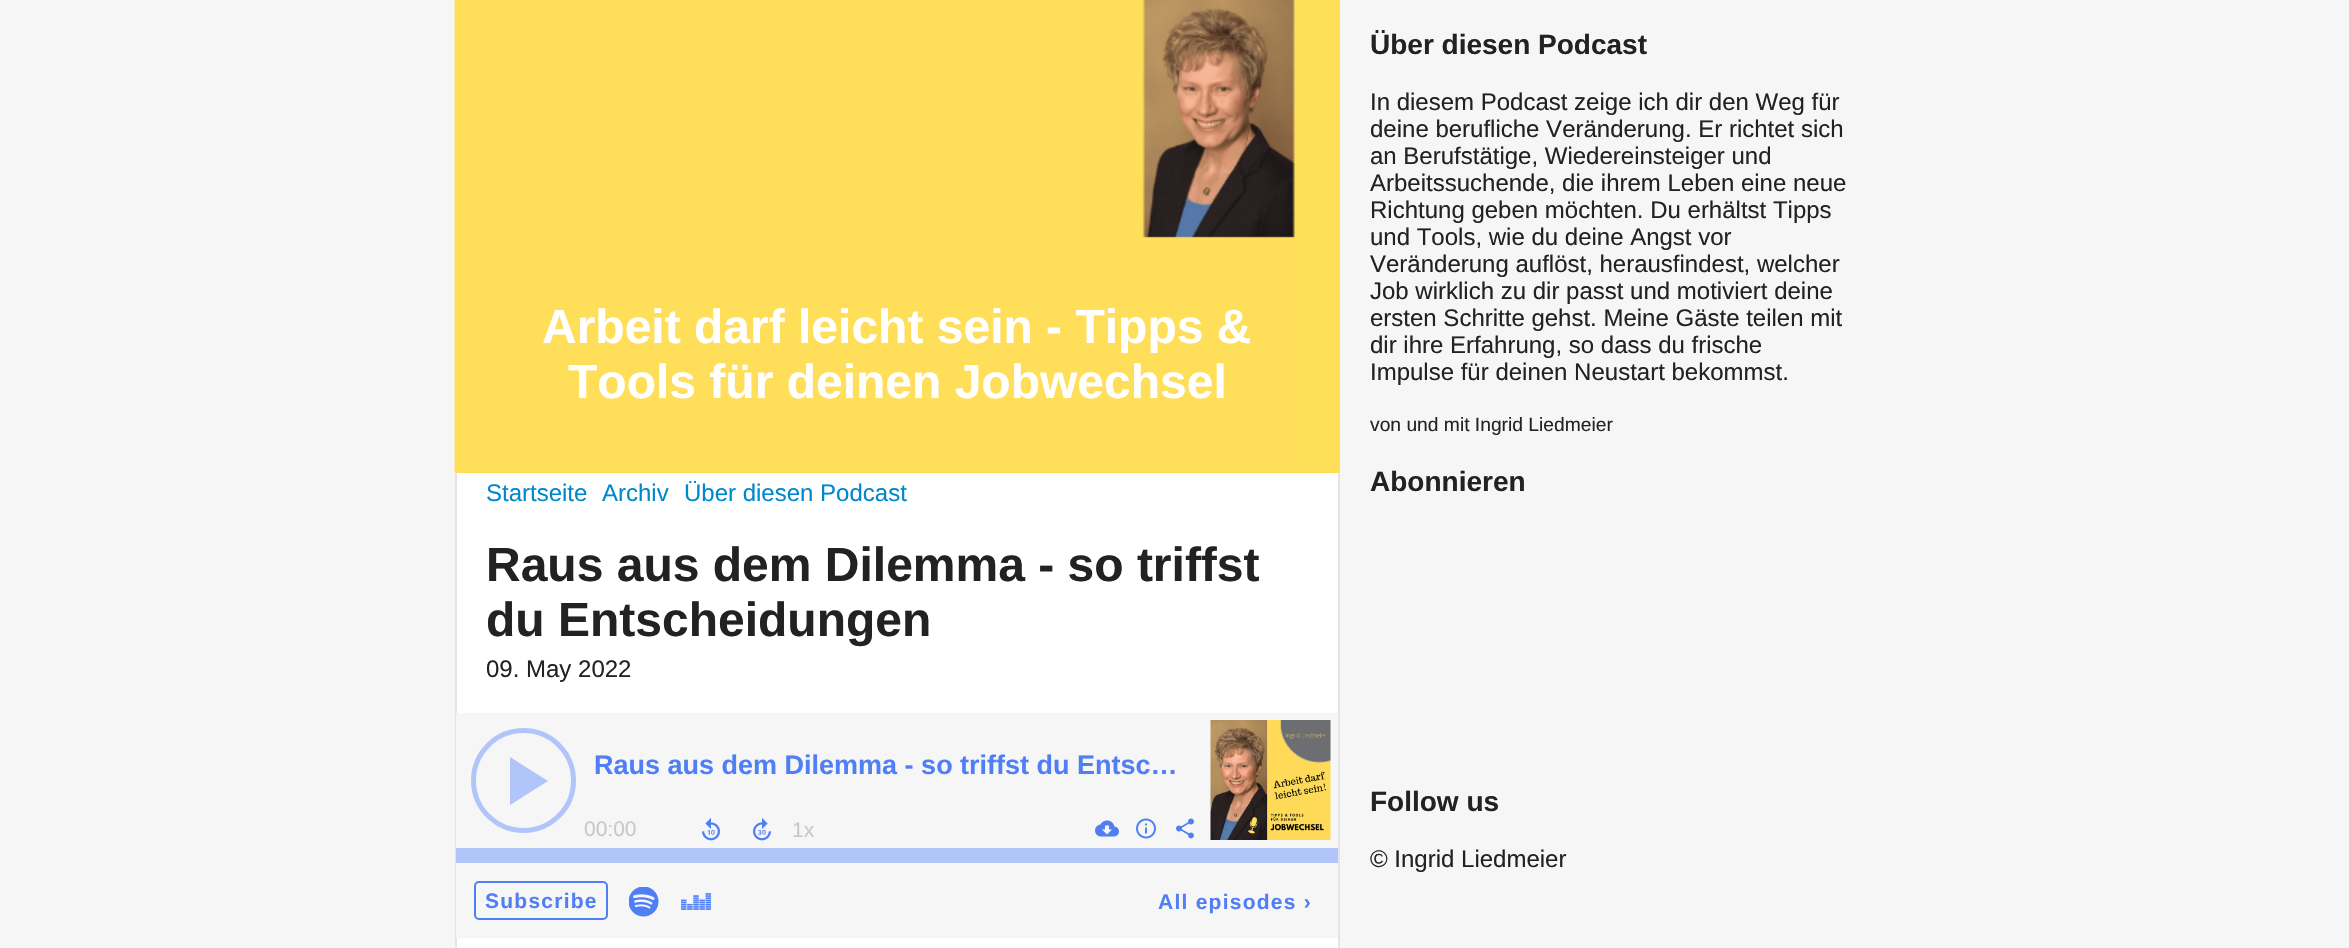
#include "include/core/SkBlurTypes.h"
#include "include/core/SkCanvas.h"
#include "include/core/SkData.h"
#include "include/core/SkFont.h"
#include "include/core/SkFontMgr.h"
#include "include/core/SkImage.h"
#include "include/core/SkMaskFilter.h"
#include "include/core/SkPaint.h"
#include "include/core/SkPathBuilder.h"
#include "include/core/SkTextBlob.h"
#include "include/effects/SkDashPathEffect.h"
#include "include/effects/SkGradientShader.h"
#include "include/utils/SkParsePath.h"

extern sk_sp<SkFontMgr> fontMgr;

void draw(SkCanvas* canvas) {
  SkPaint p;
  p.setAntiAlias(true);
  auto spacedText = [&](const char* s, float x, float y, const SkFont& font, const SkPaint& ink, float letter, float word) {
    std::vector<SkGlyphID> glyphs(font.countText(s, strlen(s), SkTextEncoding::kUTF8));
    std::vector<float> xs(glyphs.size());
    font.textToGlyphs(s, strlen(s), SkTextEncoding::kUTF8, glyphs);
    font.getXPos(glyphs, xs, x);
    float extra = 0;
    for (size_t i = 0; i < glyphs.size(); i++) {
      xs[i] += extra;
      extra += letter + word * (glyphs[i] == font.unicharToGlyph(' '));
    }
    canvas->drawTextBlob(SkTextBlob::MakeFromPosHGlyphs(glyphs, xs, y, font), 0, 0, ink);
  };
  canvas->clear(SkColorSetRGB(246, 246, 246));
  p.setColor(SK_ColorWHITE);
  canvas->drawRect(SkRect::MakeLTRB(457, 473, 1338, 948), p);
  p.setColor(SkColorSetRGB(253, 223, 88));
  canvas->drawRect(SkRect::MakeLTRB(455, 0, 1340, 473), p);
  canvas->drawImageRect(SkImages::DeferredFromEncodedData(SkData::MakeFromFileName("images/1.png")), SkRect::MakeLTRB(454, 0, 1295, 473), SkSamplingOptions());
  p.setColor(SkColorSetRGB(228, 228, 228));
  canvas->drawRect(SkRect::MakeLTRB(1338, 473, 1340, 948), p);
  canvas->drawRect(SkRect::MakeLTRB(455, 473, 457, 948), p);
  p.setColor(SkColorSetRGB(246, 246, 246));
  canvas->drawRect(SkRect::MakeLTRB(456, 713, 1338, 938), p);
  p.setStyle(SkPaint::kStroke_Style);
  p.setStrokeWidth(5);
  p.setColor(SkColorSetRGB(177, 197, 250));
  canvas->drawCircle(523.5f, 780.5f, 50, p);
  p.setStyle(SkPaint::kFill_Style);
  canvas->drawPath(SkPathBuilder().moveTo(510, 757).lineTo(548, 781).lineTo(510, 805).close().detach(), p);
  canvas->drawImageRect(SkImages::DeferredFromEncodedData(SkData::MakeFromFileName("images/2.png")), SkRect::MakeLTRB(1210, 720, 1331, 840), SkSamplingOptions());
  canvas->drawRect(SkRect::MakeLTRB(456, 848, 1338, 863), p);
  canvas->drawImageRect(SkImages::DeferredFromEncodedData(SkData::MakeFromFileName("images/3.png")), SkRect::MakeLTRB(702, 818, 720, 841), SkSamplingOptions());
  canvas->drawImageRect(SkImages::DeferredFromEncodedData(SkData::MakeFromFileName("images/4.png")), SkRect::MakeLTRB(753, 818, 771, 841), SkSamplingOptions());
  canvas->drawImageRect(SkImages::DeferredFromEncodedData(SkData::MakeFromFileName("images/5.png")), SkRect::MakeLTRB(1095, 820, 1119, 837), SkSamplingOptions());
  canvas->drawImageRect(SkImages::DeferredFromEncodedData(SkData::MakeFromFileName("images/6.png")), SkRect::MakeLTRB(1136, 818, 1156, 839), SkSamplingOptions());
  canvas->drawImageRect(SkImages::DeferredFromEncodedData(SkData::MakeFromFileName("images/7.png")), SkRect::MakeLTRB(1176, 818, 1194, 839), SkSamplingOptions());
  p.setStyle(SkPaint::kStroke_Style);
  p.setStrokeWidth(2);
  p.setColor(SkColorSetRGB(80, 126, 245));
  canvas->drawRoundRect(SkRect::MakeLTRB(475, 882, 607, 919), 4, 4, p);
  canvas->drawImageRect(SkImages::DeferredFromEncodedData(SkData::MakeFromFileName("images/8.png")), SkRect::MakeLTRB(629, 887, 659, 917), SkSamplingOptions());
  canvas->drawImageRect(SkImages::DeferredFromEncodedData(SkData::MakeFromFileName("images/9.png")), SkRect::MakeLTRB(681, 893, 711, 910), SkSamplingOptions());
  SkFont font1(fontMgr->matchFamilyStyle("Liberation Sans", SkFontStyle::Bold()), 48);
  font1.setSubpixel(true);
  p.setStyle(SkPaint::kFill_Style);
  p.setColor(SK_ColorWHITE);
  canvas->drawString("Arbeit darf leicht sein - Tipps &", 542, 343, font1, p);
  canvas->drawString("Tools für deinen Jobwechsel", 568, 398, font1, p);
  SkFont font2(fontMgr->matchFamilyStyle("Liberation Sans", SkFontStyle::Normal()), 24);
  font2.setSubpixel(true);
  p.setColor(SkColorSetRGB(0, 136, 204));
  canvas->drawString("Startseite", 486, 501, font2, p);
  canvas->drawString("Archiv", 602, 501, font2, p);
  canvas->drawString("Über diesen Podcast", 684, 501, font2, p);
  p.setColor(SkColorSetRGB(34, 34, 34));
  canvas->drawString("Raus aus dem Dilemma - so triffst", 486, 581, font1, p);
  canvas->drawString("du Entscheidungen", 486, 636, font1, p);
  canvas->drawString("09. May 2022", 486, 677, font2, p);
  SkFont font3(fontMgr->matchFamilyStyle("Liberation Sans", SkFontStyle::Bold()), 27);
  font3.setSubpixel(true);
  p.setColor(SkColorSetRGB(80, 126, 245));
  canvas->drawString("Raus aus dem Dilemma - so triffst du Entsc…", 594, 774, font3, p);
  SkFont font4(fontMgr->matchFamilyStyle("Liberation Sans", SkFontStyle::Normal()), 21);
  font4.setSubpixel(true);
  p.setColor(SkColorSetRGB(200, 200, 200));
  canvas->drawString("00:00", 584, 836, font4, p);
  canvas->drawString("1x", 792, 837, font4, p);
  SkFont font5(fontMgr->matchFamilyStyle("Liberation Sans", SkFontStyle::Bold()), 21);
  font5.setSubpixel(true);
  p.setColor(SkColorSetRGB(80, 126, 245));
  spacedText("Subscribe", 485, 908, font5, p, 1.25f, 0);
  spacedText("All episodes ›", 1158, 909, font5, p, 1.25f, 0);
  SkFont font6(fontMgr->matchFamilyStyle("Liberation Sans", SkFontStyle::Bold()), 28);
  font6.setSubpixel(true);
  p.setColor(SkColorSetRGB(34, 34, 34));
  canvas->drawString("Über diesen Podcast", 1370, 54, font6, p);
  canvas->drawString("In diesem Podcast zeige ich dir den Weg für", 1370, 110, font2, p);
  canvas->drawString("deine berufliche Veränderung. Er richtet sich", 1370, 137, font2, p);
  canvas->drawString("an Berufstätige, Wiedereinsteiger und", 1370, 164, font2, p);
  canvas->drawString("Arbeitssuchende, die ihrem Leben eine neue", 1370, 191, font2, p);
  canvas->drawString("Richtung geben möchten. Du erhältst Tipps", 1370, 218, font2, p);
  canvas->drawString("und Tools, wie du deine Angst vor", 1370, 245, font2, p);
  canvas->drawString("Veränderung auflöst, herausfindest, welcher", 1370, 272, font2, p);
  canvas->drawString("Job wirklich zu dir passt und motiviert deine", 1370, 299, font2, p);
  canvas->drawString("ersten Schritte gehst. Meine Gäste teilen mit", 1370, 326, font2, p);
  canvas->drawString("dir ihre Erfahrung, so dass du frische", 1370, 353, font2, p);
  canvas->drawString("Impulse für deinen Neustart bekommst.", 1370, 380, font2, p);
  SkFont font7(fontMgr->matchFamilyStyle("Liberation Sans", SkFontStyle::Normal()), 19.25f);
  font7.setSubpixel(true);
  canvas->drawString("von und mit Ingrid Liedmeier", 1370, 431, font7, p);
  canvas->drawString("Abonnieren", 1370, 491, font6, p);
  canvas->drawString("Follow us", 1370, 811, font6, p);
  canvas->drawString("© Ingrid Liedmeier", 1370, 867, font2, p);
}
